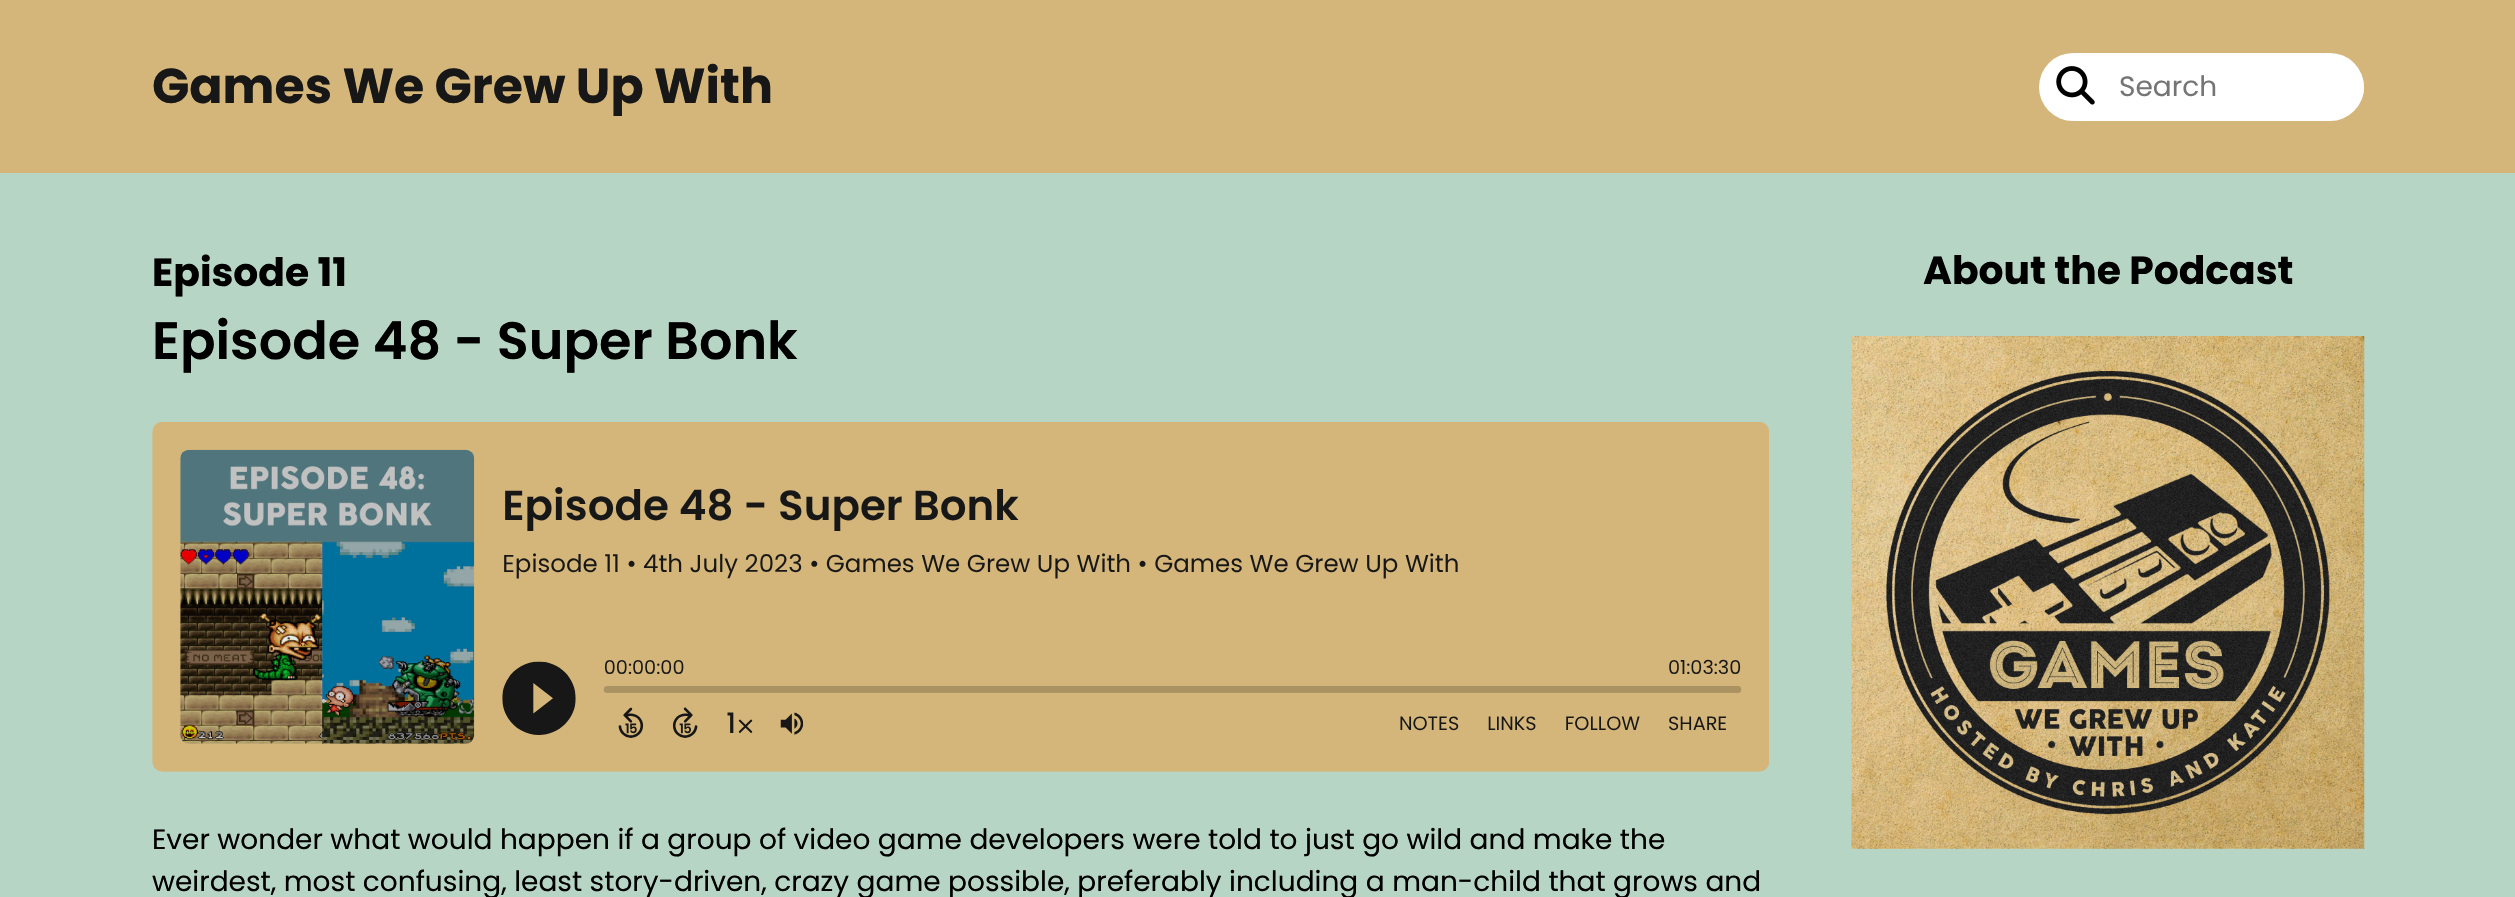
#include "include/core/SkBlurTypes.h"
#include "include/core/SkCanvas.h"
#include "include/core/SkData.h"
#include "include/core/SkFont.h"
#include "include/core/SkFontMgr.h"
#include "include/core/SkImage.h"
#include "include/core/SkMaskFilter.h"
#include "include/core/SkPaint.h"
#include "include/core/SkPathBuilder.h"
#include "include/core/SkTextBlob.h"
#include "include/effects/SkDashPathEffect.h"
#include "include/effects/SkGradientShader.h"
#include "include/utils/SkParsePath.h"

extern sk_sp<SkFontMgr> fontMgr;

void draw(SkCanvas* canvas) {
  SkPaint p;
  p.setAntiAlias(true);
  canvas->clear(SkColorSetRGB(213, 182, 122));
  p.setColor(SK_ColorWHITE);
  canvas->drawRoundRect(SkRect::MakeLTRB(2039, 53, 2364, 121), 34, 34, p);
  canvas->drawImageRect(SkImages::DeferredFromEncodedData(SkData::MakeFromFileName("images/1.png")), SkRect::MakeLTRB(2056, 66, 2095, 105), SkSamplingOptions());
  canvas->drawRoundRect(SkRect::MakeLTRB(2119, 58, 2364, 117), 29.5f, 29.5f, p);
  p.setColor(SkColorSetRGB(183, 213, 196));
  canvas->drawRect(SkRect::MakeLTRB(0, 173, 2515, 897), p);
  canvas->drawImageRect(SkImages::DeferredFromEncodedData(SkData::MakeFromFileName("images/2.png")), SkRect::MakeLTRB(152, 422, 1769, 772), SkSamplingOptions());
  canvas->drawImageRect(SkImages::DeferredFromEncodedData(SkData::MakeFromFileName("images/3.png")), SkRect::MakeLTRB(1851, 336, 2365, 849), SkSamplingOptions());
  SkFont font1(fontMgr->matchFamilyStyle("Poppins", SkFontStyle::Bold()), 49);
  font1.setSubpixel(true);
  p.setColor(SkColorSetRGB(23, 23, 23));
  canvas->drawString("Games We Grew Up With", 152, 103, font1, p);
  SkFont font2(fontMgr->matchFamilyStyle("Poppins", SkFontStyle::Normal()), 28);
  font2.setSubpixel(true);
  p.setColor(SkColorSetRGB(117, 117, 117));
  canvas->drawString("Search", 2119, 96, font2, p);
  SkFont font3(fontMgr->matchFamilyStyle("Poppins", SkFontStyle::Bold()), 39.25f);
  font3.setSubpixel(true);
  p.setColor(SK_ColorBLACK);
  canvas->drawString("Episode 11", 152, 286, font3, p);
  SkFont font4(fontMgr->matchFamilyStyle("Poppins", SkFontStyle(600, SkFontStyle::kNormal_Width, SkFontStyle::kUpright_Slant)), 52.5f);
  font4.setSubpixel(true);
  canvas->drawString("Episode 48 - Super Bonk", 152, 359, font4, p);
  canvas->drawString("Ever wonder what would happen if a group of video game developers were told to just go wild and make the", 152, 849, font2, p);
  canvas->drawString("weirdest, most confusing, least story-driven, crazy game possible, preferably including a man-child that grows and", 152, 891, font2, p);
  canvas->drawString("About the Podcast", 1923, 284, font3, p);
}
